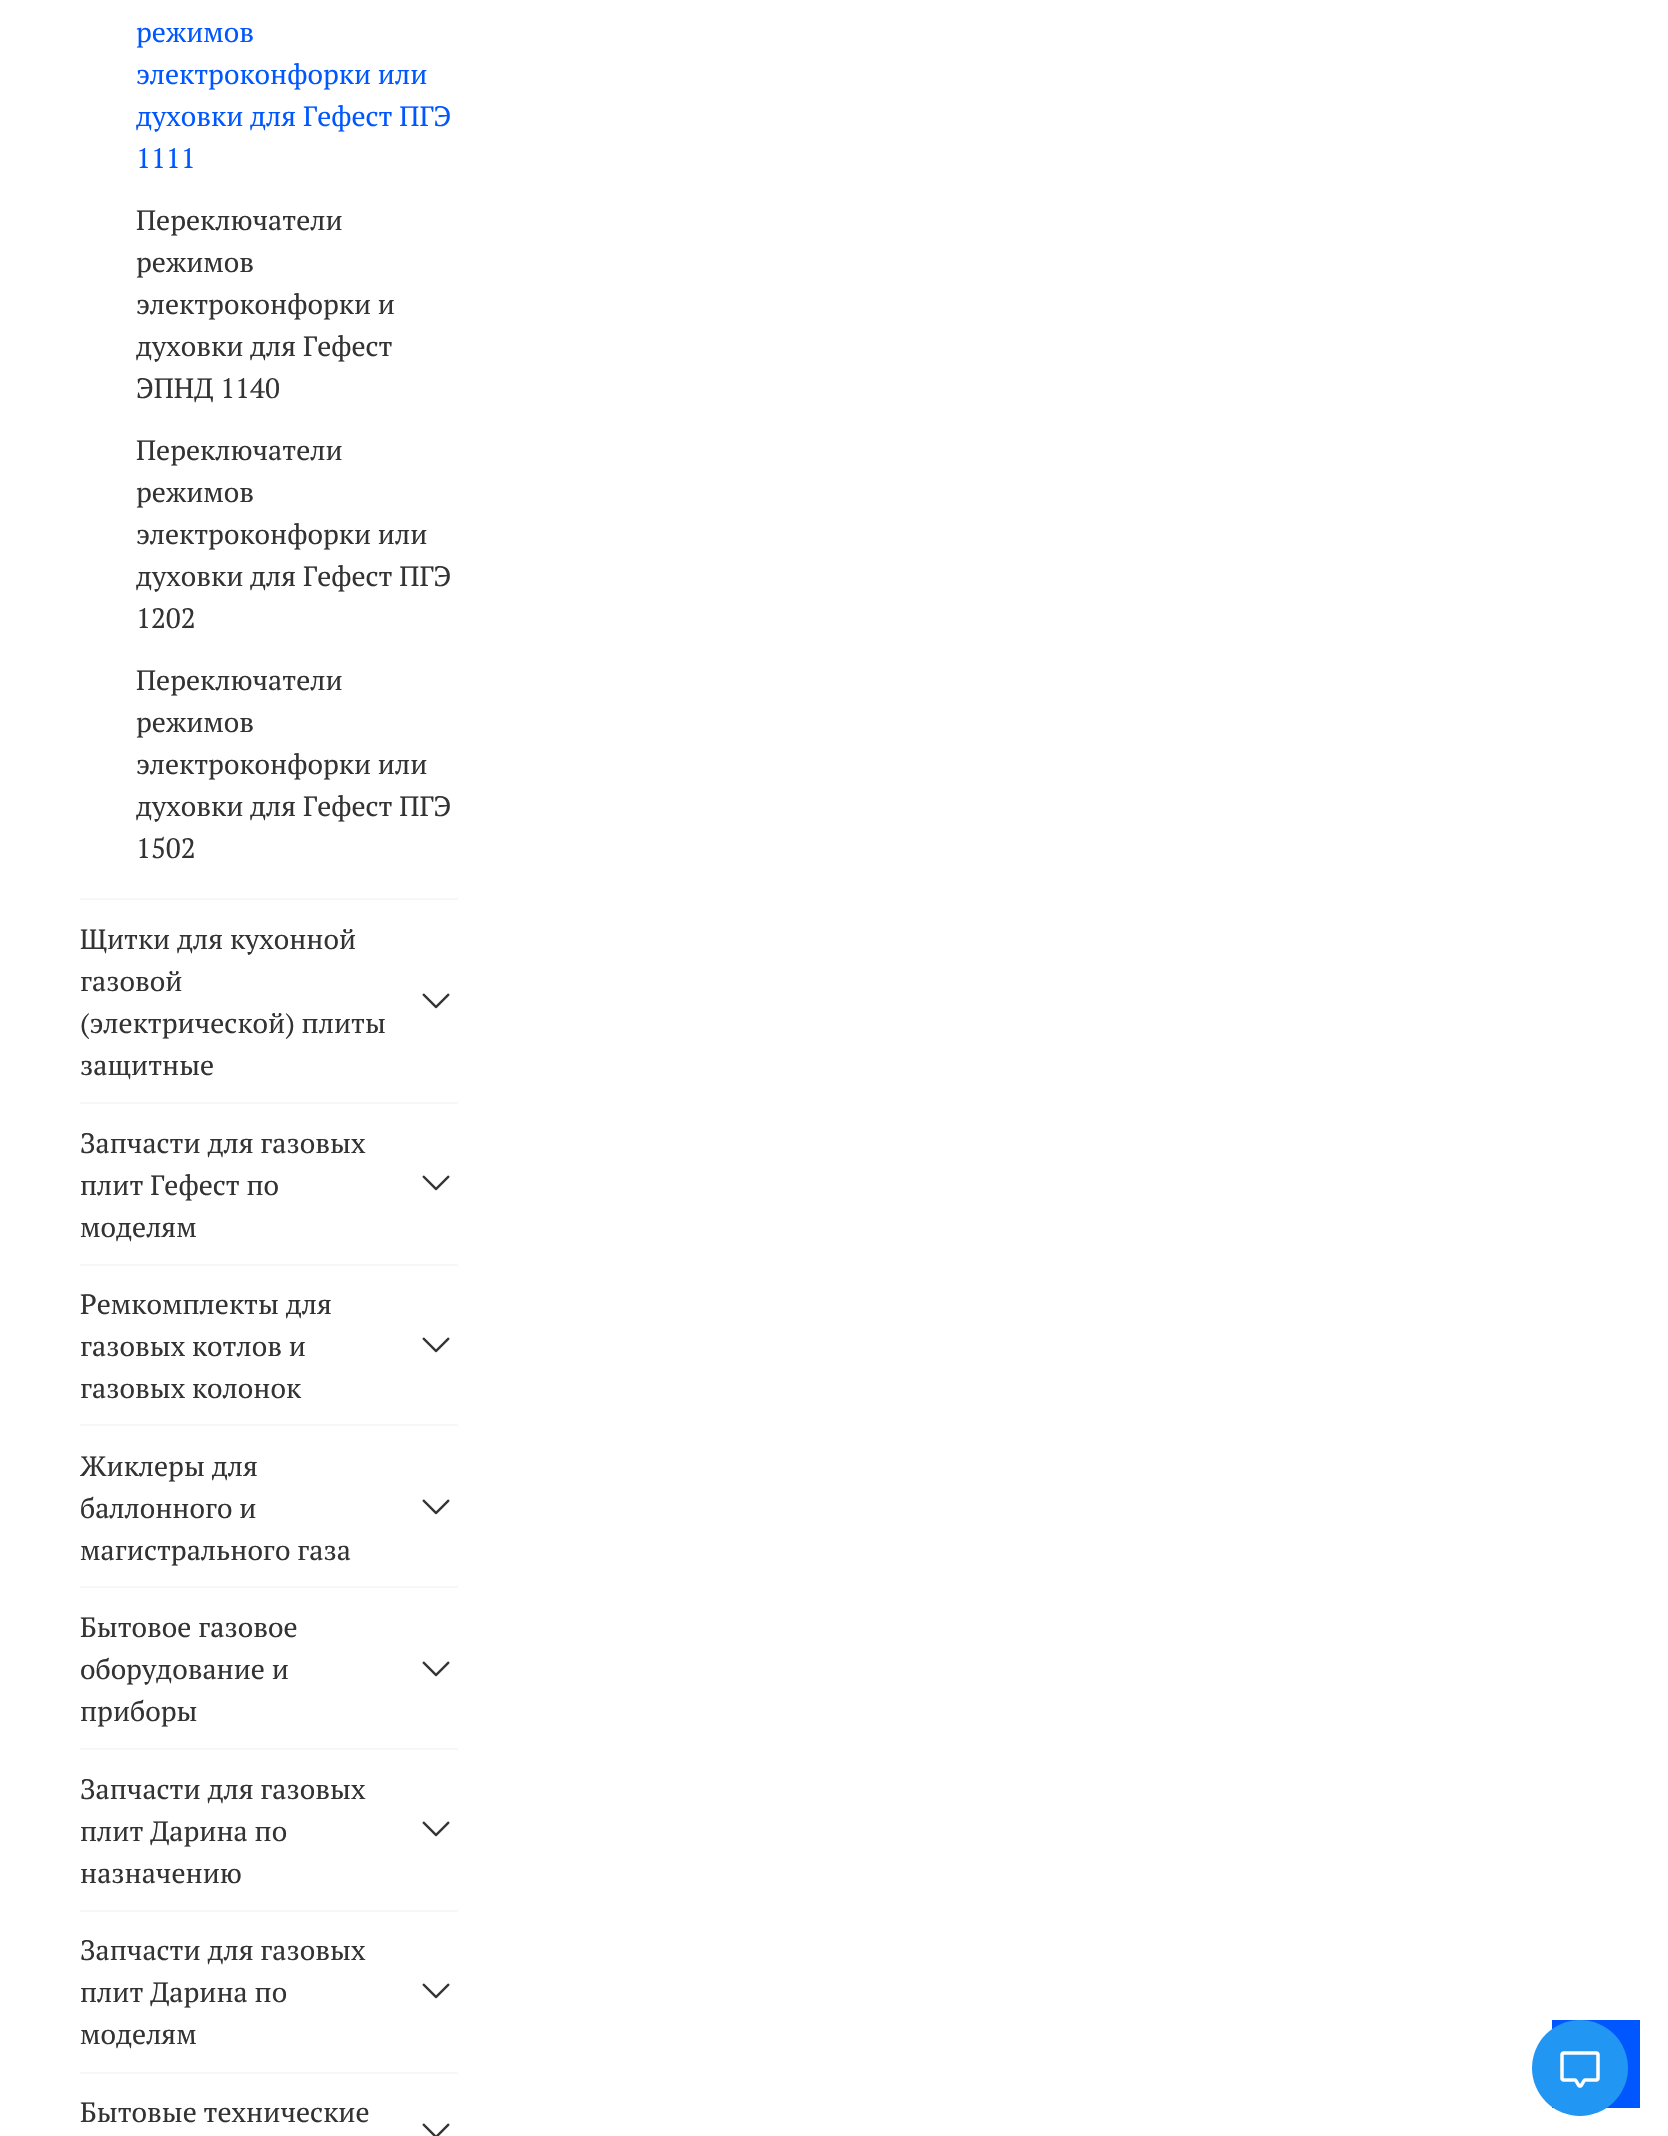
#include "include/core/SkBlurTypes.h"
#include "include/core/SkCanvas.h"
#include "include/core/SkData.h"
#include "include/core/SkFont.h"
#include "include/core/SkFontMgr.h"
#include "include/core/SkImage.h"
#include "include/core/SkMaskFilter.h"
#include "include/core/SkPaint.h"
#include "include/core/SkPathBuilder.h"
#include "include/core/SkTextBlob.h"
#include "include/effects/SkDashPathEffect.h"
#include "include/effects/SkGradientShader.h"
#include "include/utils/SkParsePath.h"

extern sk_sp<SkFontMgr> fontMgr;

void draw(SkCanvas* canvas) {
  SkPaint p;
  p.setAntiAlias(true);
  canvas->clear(SK_ColorWHITE);
  p.setColor(SkColorSetRGB(247, 247, 247));
  canvas->drawRect(SkRect::MakeLTRB(80, 898, 458, 900), p);
  canvas->drawRect(SkRect::MakeLTRB(80, 1102, 458, 1104), p);
  canvas->drawImageRect(SkImages::DeferredFromEncodedData(SkData::MakeFromFileName("images/1.png")), SkRect::MakeLTRB(422, 993, 450, 1009), SkSamplingOptions());
  canvas->drawRect(SkRect::MakeLTRB(80, 1264, 458, 1266), p);
  canvas->drawImageRect(SkImages::DeferredFromEncodedData(SkData::MakeFromFileName("images/1.png")), SkRect::MakeLTRB(422, 1175, 450, 1191), SkSamplingOptions());
  canvas->drawRect(SkRect::MakeLTRB(80, 1424, 458, 1426), p);
  canvas->drawImageRect(SkImages::DeferredFromEncodedData(SkData::MakeFromFileName("images/1.png")), SkRect::MakeLTRB(422, 1337, 450, 1353), SkSamplingOptions());
  canvas->drawRect(SkRect::MakeLTRB(80, 1586, 458, 1588), p);
  canvas->drawImageRect(SkImages::DeferredFromEncodedData(SkData::MakeFromFileName("images/1.png")), SkRect::MakeLTRB(422, 1499, 450, 1515), SkSamplingOptions());
  canvas->drawRect(SkRect::MakeLTRB(80, 1748, 458, 1750), p);
  canvas->drawImageRect(SkImages::DeferredFromEncodedData(SkData::MakeFromFileName("images/1.png")), SkRect::MakeLTRB(422, 1661, 450, 1677), SkSamplingOptions());
  canvas->drawRect(SkRect::MakeLTRB(80, 1910, 458, 1912), p);
  canvas->drawImageRect(SkImages::DeferredFromEncodedData(SkData::MakeFromFileName("images/1.png")), SkRect::MakeLTRB(422, 1821, 450, 1837), SkSamplingOptions());
  canvas->drawRect(SkRect::MakeLTRB(80, 2072, 458, 2074), p);
  canvas->drawImageRect(SkImages::DeferredFromEncodedData(SkData::MakeFromFileName("images/1.png")), SkRect::MakeLTRB(422, 1983, 450, 1999), SkSamplingOptions());
  canvas->drawImageRect(SkImages::DeferredFromEncodedData(SkData::MakeFromFileName("images/2.png")), SkRect::MakeLTRB(422, 2123, 450, 2136), SkSamplingOptions());
  p.setColor(SkColorSetRGB(0, 87, 255));
  canvas->drawRect(SkRect::MakeLTRB(1552, 2020, 1640, 2108), p);
  p.setColor(SkColorSetRGB(33, 150, 243));
  canvas->drawCircle(1580, 2068, 48, p);
  canvas->drawImageRect(SkImages::DeferredFromEncodedData(SkData::MakeFromFileName("images/3.png")), SkRect::MakeLTRB(1560, 2051, 1600, 2088), SkSamplingOptions());
  SkFont font1(fontMgr->matchFamilyStyle("PT Serif", SkFontStyle::Normal()), 28);
  font1.setSubpixel(true);
  p.setColor(SkColorSetRGB(0, 87, 255));
  canvas->drawString("режимов", 136, 42, font1, p);
  canvas->drawString("электроконфорки или", 136, 84, font1, p);
  canvas->drawString("духовки для Гефест ПГЭ", 136, 126, font1, p);
  canvas->drawString("1111", 136, 168, font1, p);
  p.setColor(SkColorSetRGB(51, 51, 51));
  canvas->drawString("Переключатели", 136, 230, font1, p);
  canvas->drawString("режимов", 136, 272, font1, p);
  canvas->drawString("электроконфорки и", 136, 314, font1, p);
  canvas->drawString("духовки для Гефест", 136, 356, font1, p);
  canvas->drawString("ЭПНД 1140", 136, 398, font1, p);
  canvas->drawString("Переключатели", 136, 460, font1, p);
  canvas->drawString("режимов", 136, 502, font1, p);
  canvas->drawString("электроконфорки или", 136, 544, font1, p);
  canvas->drawString("духовки для Гефест ПГЭ", 136, 586, font1, p);
  canvas->drawString("1202", 136, 628, font1, p);
  canvas->drawString("Переключатели", 136, 690, font1, p);
  canvas->drawString("режимов", 136, 732, font1, p);
  canvas->drawString("электроконфорки или", 136, 774, font1, p);
  canvas->drawString("духовки для Гефест ПГЭ", 136, 816, font1, p);
  canvas->drawString("1502", 136, 858, font1, p);
  canvas->drawString("Щитки для кухонной", 80, 949, font1, p);
  canvas->drawString("газовой", 80, 991, font1, p);
  canvas->drawString("(электрической) плиты", 80, 1033, font1, p);
  canvas->drawString("защитные", 80, 1075, font1, p);
  canvas->drawString("Запчасти для газовых", 80, 1153, font1, p);
  canvas->drawString("плит Гефест по", 80, 1195, font1, p);
  canvas->drawString("моделям", 80, 1237, font1, p);
  canvas->drawString("Ремкомплекты для", 80, 1314, font1, p);
  canvas->drawString("газовых котлов и", 80, 1356, font1, p);
  canvas->drawString("газовых колонок", 80, 1398, font1, p);
  canvas->drawString("Жиклеры для", 80, 1476, font1, p);
  canvas->drawString("баллонного и", 80, 1518, font1, p);
  canvas->drawString("магистрального газа", 80, 1560, font1, p);
  canvas->drawString("Бытовое газовое", 80, 1637, font1, p);
  canvas->drawString("оборудование и", 80, 1679, font1, p);
  canvas->drawString("приборы", 80, 1721, font1, p);
  canvas->drawString("Запчасти для газовых", 80, 1799, font1, p);
  canvas->drawString("плит Дарина по", 80, 1841, font1, p);
  canvas->drawString("назначению", 80, 1883, font1, p);
  canvas->drawString("Запчасти для газовых", 80, 1960, font1, p);
  canvas->drawString("плит Дарина по", 80, 2002, font1, p);
  canvas->drawString("моделям", 80, 2044, font1, p);
  canvas->drawString("Бытовые технические", 80, 2122, font1, p);
}
